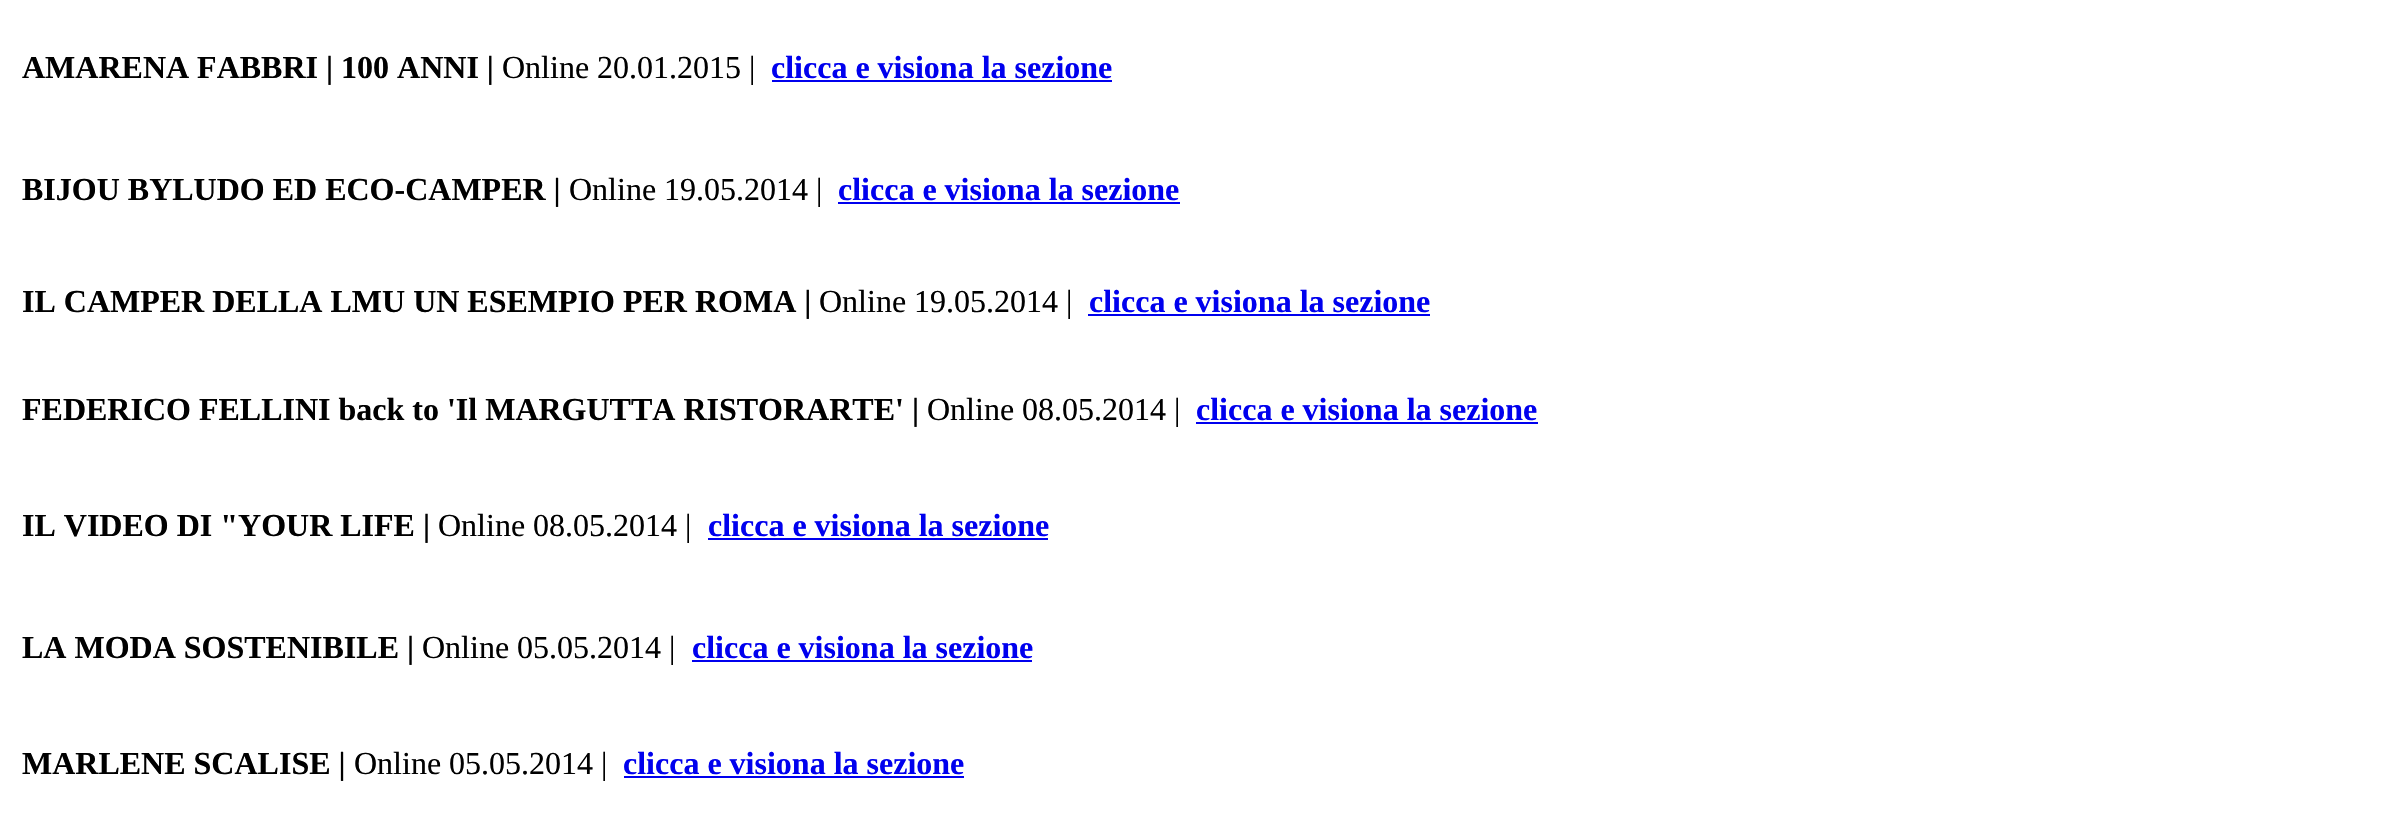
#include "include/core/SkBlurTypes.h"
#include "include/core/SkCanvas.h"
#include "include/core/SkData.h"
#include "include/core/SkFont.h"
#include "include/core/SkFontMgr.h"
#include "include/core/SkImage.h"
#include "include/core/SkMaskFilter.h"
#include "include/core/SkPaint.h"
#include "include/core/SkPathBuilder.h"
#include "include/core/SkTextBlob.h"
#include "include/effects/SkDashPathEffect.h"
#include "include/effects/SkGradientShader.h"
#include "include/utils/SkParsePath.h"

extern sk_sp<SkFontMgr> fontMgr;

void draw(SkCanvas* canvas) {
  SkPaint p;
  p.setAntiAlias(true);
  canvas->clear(SK_ColorWHITE);
  p.setColor(SkColorSetRGB(0, 0, 238));
  canvas->drawRect(SkRect::MakeLTRB(772, 80, 1112, 82), p);
  canvas->drawRect(SkRect::MakeLTRB(838, 202, 1180, 204), p);
  canvas->drawRect(SkRect::MakeLTRB(1088, 314, 1430, 316), p);
  canvas->drawRect(SkRect::MakeLTRB(1196, 422, 1538, 424), p);
  canvas->drawRect(SkRect::MakeLTRB(708, 538, 1048, 540), p);
  canvas->drawRect(SkRect::MakeLTRB(692, 660, 1032, 662), p);
  canvas->drawRect(SkRect::MakeLTRB(624, 776, 964, 778), p);
  SkFont font1(fontMgr->matchFamilyStyle("Liberation Serif", SkFontStyle::Bold()), 32);
  font1.setSubpixel(true);
  p.setColor(SK_ColorBLACK);
  canvas->drawString("AMARENA FABBRI | 100 ANNI |", 22, 78, font1, p);
  SkFont font2(fontMgr->matchFamilyStyle("Liberation Serif", SkFontStyle::Normal()), 32);
  font2.setSubpixel(true);
  canvas->drawString("Online 20.01.2015 |", 502, 78, font2, p);
  p.setColor(SkColorSetRGB(0, 0, 238));
  canvas->drawString("clicca e visiona la sezione", 771, 78, font1, p);
  p.setColor(SK_ColorBLACK);
  canvas->drawString("BIJOU BYLUDO ED ECO-CAMPER |", 22, 200, font1, p);
  canvas->drawString("Online 19.05.2014 |", 569, 200, font2, p);
  p.setColor(SkColorSetRGB(0, 0, 238));
  canvas->drawString("clicca e visiona la sezione", 838, 200, font1, p);
  p.setColor(SK_ColorBLACK);
  canvas->drawString("IL CAMPER DELLA LMU UN ESEMPIO PER ROMA |", 22, 312, font1, p);
  canvas->drawString("Online 19.05.2014 |", 819, 312, font2, p);
  p.setColor(SkColorSetRGB(0, 0, 238));
  canvas->drawString("clicca e visiona la sezione", 1089, 312, font1, p);
  p.setColor(SK_ColorBLACK);
  canvas->drawString("FEDERICO FELLINI back to 'Il MARGUTTA RISTORARTE' |", 22, 420, font1, p);
  canvas->drawString("Online 08.05.2014 |", 927, 420, font2, p);
  p.setColor(SkColorSetRGB(0, 0, 238));
  canvas->drawString("clicca e visiona la sezione", 1196, 420, font1, p);
  p.setColor(SK_ColorBLACK);
  canvas->drawString("IL VIDEO DI \"YOUR LIFE |", 22, 536, font1, p);
  canvas->drawString("Online 08.05.2014 |", 438, 536, font2, p);
  p.setColor(SkColorSetRGB(0, 0, 238));
  canvas->drawString("clicca e visiona la sezione", 708, 536, font1, p);
  p.setColor(SK_ColorBLACK);
  canvas->drawString("LA MODA SOSTENIBILE |", 22, 658, font1, p);
  canvas->drawString("Online 05.05.2014 |", 422, 658, font2, p);
  p.setColor(SkColorSetRGB(0, 0, 238));
  canvas->drawString("clicca e visiona la sezione", 692, 658, font1, p);
  p.setColor(SK_ColorBLACK);
  canvas->drawString("MARLENE SCALISE |", 22, 774, font1, p);
  canvas->drawString("Online 05.05.2014 |", 354, 774, font2, p);
  p.setColor(SkColorSetRGB(0, 0, 238));
  canvas->drawString("clicca e visiona la sezione", 623, 774, font1, p);
}
